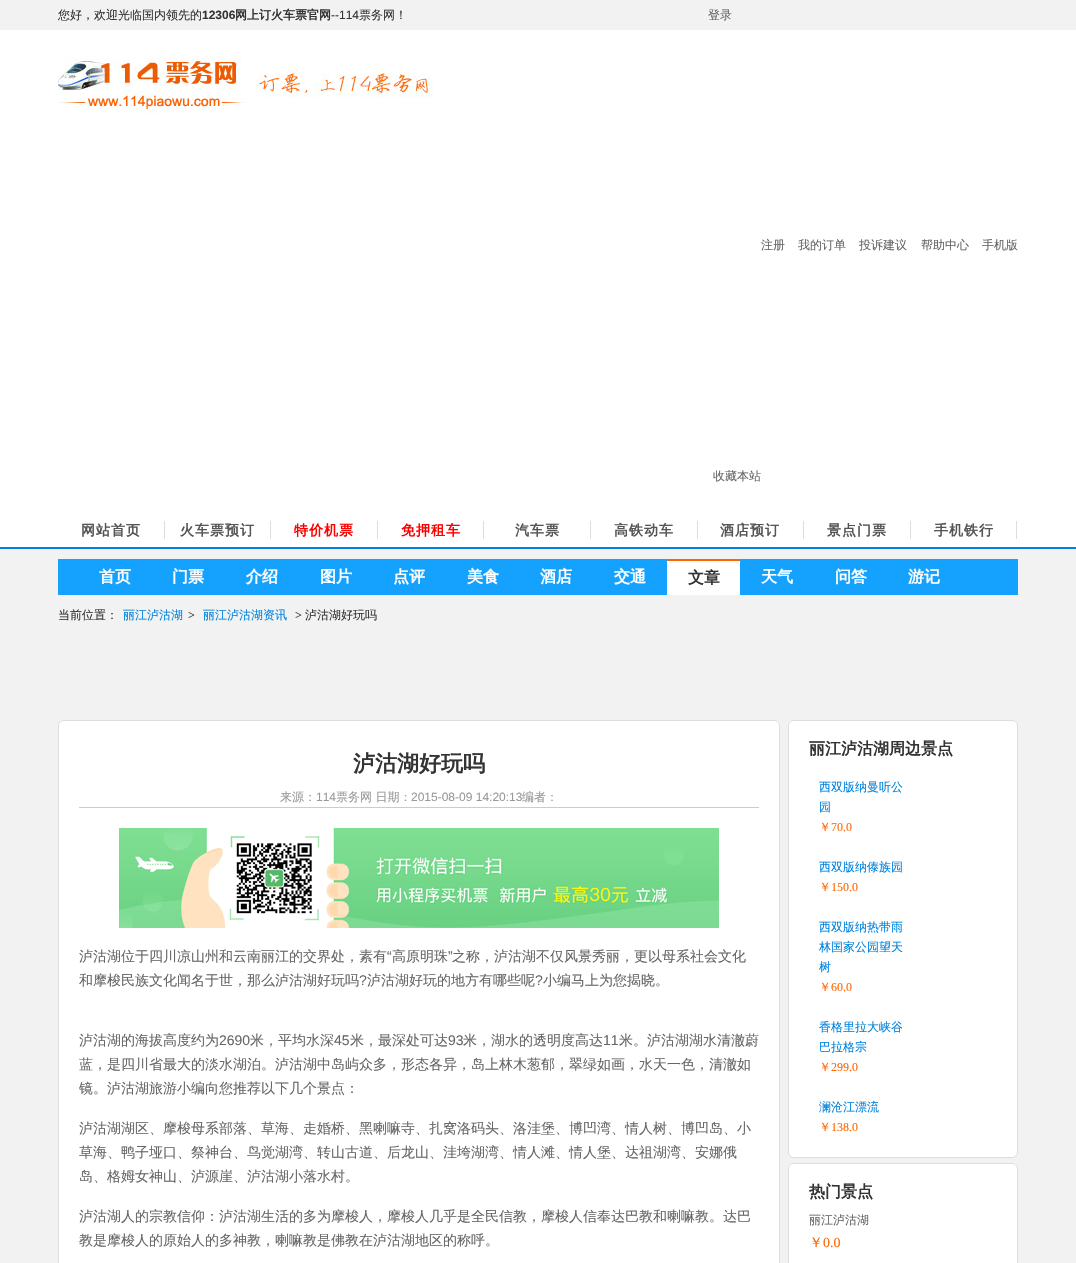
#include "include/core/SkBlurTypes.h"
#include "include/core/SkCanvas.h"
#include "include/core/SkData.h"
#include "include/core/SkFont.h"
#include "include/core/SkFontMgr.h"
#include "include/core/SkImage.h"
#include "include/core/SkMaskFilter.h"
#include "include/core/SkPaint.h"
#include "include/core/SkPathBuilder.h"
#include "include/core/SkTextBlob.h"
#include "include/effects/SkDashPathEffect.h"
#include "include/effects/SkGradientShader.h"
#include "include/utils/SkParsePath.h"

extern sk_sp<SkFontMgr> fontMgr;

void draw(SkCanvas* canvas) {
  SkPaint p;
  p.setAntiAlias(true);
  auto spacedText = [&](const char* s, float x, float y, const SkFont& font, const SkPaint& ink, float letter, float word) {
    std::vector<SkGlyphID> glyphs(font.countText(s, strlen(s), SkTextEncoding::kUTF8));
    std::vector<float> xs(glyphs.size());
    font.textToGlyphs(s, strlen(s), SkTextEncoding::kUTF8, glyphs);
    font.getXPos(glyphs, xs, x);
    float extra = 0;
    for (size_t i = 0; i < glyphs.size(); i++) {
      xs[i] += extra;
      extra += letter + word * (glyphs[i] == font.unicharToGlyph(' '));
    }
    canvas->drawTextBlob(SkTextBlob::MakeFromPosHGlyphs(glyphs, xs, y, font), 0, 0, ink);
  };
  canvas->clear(SkColorSetRGB(242, 242, 242));
  p.setColor(SK_ColorWHITE);
  canvas->drawRect(SkRect::MakeLTRB(0, 30, 1076, 547), p);
  canvas->drawImageRect(SkImages::DeferredFromEncodedData(SkData::MakeFromFileName("images/1.png")), SkRect::MakeLTRB(58, 58, 434, 114), SkSamplingOptions());
  p.setColor(SkColorSetRGB(221, 221, 221));
  canvas->drawRect(SkRect::MakeLTRB(164, 521, 165, 539), p);
  canvas->drawRect(SkRect::MakeLTRB(270, 521, 271, 539), p);
  canvas->drawRect(SkRect::MakeLTRB(377, 521, 378, 539), p);
  canvas->drawRect(SkRect::MakeLTRB(483, 521, 484, 539), p);
  canvas->drawRect(SkRect::MakeLTRB(590, 521, 591, 539), p);
  canvas->drawRect(SkRect::MakeLTRB(697, 521, 698, 539), p);
  canvas->drawRect(SkRect::MakeLTRB(803, 521, 804, 539), p);
  canvas->drawRect(SkRect::MakeLTRB(910, 521, 911, 539), p);
  canvas->drawRect(SkRect::MakeLTRB(1016, 521, 1017, 539), p);
  p.setColor(SkColorSetRGB(0, 131, 222));
  canvas->drawRect(SkRect::MakeLTRB(0, 547, 1076, 549), p);
  p.setColor(SkColorSetRGB(21, 162, 255));
  canvas->drawRect(SkRect::MakeLTRB(58, 559, 1018, 595), p);
  p.setColor(SK_ColorWHITE);
  canvas->drawRect(SkRect::MakeLTRB(667, 561, 740, 595), p);
  p.setColor(SkColorSetRGB(254, 101, 0));
  canvas->drawRect(SkRect::MakeLTRB(667, 559, 740, 561), p);
  p.setColor(SK_ColorWHITE);
  canvas->drawRect(SkRect::MakeLTRB(58.5f, 720.5f, 779.5f, 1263.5f), p);
  p.setStyle(SkPaint::kStroke_Style);
  p.setStrokeWidth(1);
  p.setColor(SkColorSetRGB(221, 221, 221));
  canvas->drawRect(SkRect::MakeLTRB(58.5f, 720.5f, 779.5f, 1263.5f), p);
  canvas->drawImageRect(SkImages::DeferredFromEncodedData(SkData::MakeFromFileName("images/2.png")), SkRect::MakeLTRB(58, 720, 63, 725), SkSamplingOptions());
  canvas->drawImageRect(SkImages::DeferredFromEncodedData(SkData::MakeFromFileName("images/3.png")), SkRect::MakeLTRB(775, 720, 780, 725), SkSamplingOptions());
  p.setStyle(SkPaint::kFill_Style);
  p.setColor(SkColorSetRGB(204, 204, 204));
  canvas->drawRect(SkRect::MakeLTRB(79, 807, 759, 808), p);
  canvas->drawImageRect(SkImages::DeferredFromEncodedData(SkData::MakeFromFileName("images/4.png")), SkRect::MakeLTRB(119, 828, 719, 928), SkSamplingOptions());
  p.setColor(SK_ColorWHITE);
  canvas->drawRect(SkRect::MakeLTRB(788.5f, 720.5f, 1017.5f, 1157.5f), p);
  p.setStyle(SkPaint::kStroke_Style);
  p.setColor(SkColorSetRGB(221, 221, 221));
  canvas->drawRect(SkRect::MakeLTRB(788.5f, 720.5f, 1017.5f, 1157.5f), p);
  canvas->drawImageRect(SkImages::DeferredFromEncodedData(SkData::MakeFromFileName("images/2.png")), SkRect::MakeLTRB(788, 720, 793, 725), SkSamplingOptions());
  canvas->drawImageRect(SkImages::DeferredFromEncodedData(SkData::MakeFromFileName("images/3.png")), SkRect::MakeLTRB(1013, 720, 1018, 725), SkSamplingOptions());
  canvas->drawImageRect(SkImages::DeferredFromEncodedData(SkData::MakeFromFileName("images/5.png")), SkRect::MakeLTRB(788, 1153, 793, 1158), SkSamplingOptions());
  canvas->drawImageRect(SkImages::DeferredFromEncodedData(SkData::MakeFromFileName("images/6.png")), SkRect::MakeLTRB(1013, 1153, 1018, 1158), SkSamplingOptions());
  p.setStyle(SkPaint::kFill_Style);
  p.setColor(SK_ColorWHITE);
  canvas->drawRect(SkRect::MakeLTRB(788.5f, 1163.5f, 1017.5f, 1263.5f), p);
  p.setStyle(SkPaint::kStroke_Style);
  p.setColor(SkColorSetRGB(221, 221, 221));
  canvas->drawRect(SkRect::MakeLTRB(788.5f, 1163.5f, 1017.5f, 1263.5f), p);
  canvas->drawImageRect(SkImages::DeferredFromEncodedData(SkData::MakeFromFileName("images/2.png")), SkRect::MakeLTRB(788, 1163, 793, 1168), SkSamplingOptions());
  canvas->drawImageRect(SkImages::DeferredFromEncodedData(SkData::MakeFromFileName("images/3.png")), SkRect::MakeLTRB(1013, 1163, 1018, 1168), SkSamplingOptions());
  SkFont font1(fontMgr->matchFamilyStyle("WenQuanYi Zen Hei", SkFontStyle(500, SkFontStyle::kNormal_Width, SkFontStyle::kUpright_Slant)), 12);
  font1.setSubpixel(true);
  p.setStyle(SkPaint::kFill_Style);
  p.setColor(SkColorSetRGB(51, 51, 51));
  canvas->drawString("您好，欢迎光临国内领先的", 58, 19, font1, p);
  SkFont font2(fontMgr->matchFamilyStyle("Liberation Sans", SkFontStyle::Bold()), 12);
  font2.setSubpixel(true);
  canvas->drawString("12306", 202, 19, font2, p);
  SkFont font3(fontMgr->matchFamilyStyle("WenQuanYi Zen Hei", SkFontStyle::Bold()), 12);
  font3.setSubpixel(true);
  canvas->drawString("网上订火车票官网", 235, 19, font3, p);
  SkFont font4(fontMgr->matchFamilyStyle("Liberation Sans", SkFontStyle::Normal()), 12);
  font4.setSubpixel(true);
  canvas->drawString("--114", 331, 19, font4, p);
  canvas->drawString("票务网！", 359, 19, font1, p);
  p.setColor(SkColorSetRGB(102, 102, 102));
  canvas->drawString("登录", 708, 19, font1, p);
  canvas->drawString("注册", 761, 249, font1, p);
  canvas->drawString("我的订单", 798, 249, font1, p);
  canvas->drawString("投诉建议", 859, 249, font1, p);
  canvas->drawString("帮助中心", 921, 249, font1, p);
  canvas->drawString("手机版", 982, 249, font1, p);
  canvas->drawString("收藏本站", 713, 480, font1, p);
  SkFont font5(fontMgr->matchFamilyStyle("WenQuanYi Zen Hei", SkFontStyle::Bold()), 14);
  font5.setSubpixel(true);
  p.setColor(SkColorSetRGB(85, 85, 85));
  spacedText("网站首页", 81, 535, font5, p, 1, 0);
  spacedText("火车票预订", 180, 535, font5, p, 1, 0);
  p.setColor(SkColorSetRGB(255, 0, 0));
  spacedText("特价机票", 294, 535, font5, p, 1, 0);
  spacedText("免押租车", 401, 535, font5, p, 1, 0);
  p.setColor(SkColorSetRGB(85, 85, 85));
  spacedText("汽车票", 515, 535, font5, p, 1, 0);
  spacedText("高铁动车", 614, 535, font5, p, 1, 0);
  spacedText("酒店预订", 720, 535, font5, p, 1, 0);
  spacedText("景点门票", 827, 535, font5, p, 1, 0);
  spacedText("手机铁行", 934, 535, font5, p, 1, 0);
  SkFont font6(fontMgr->matchFamilyStyle("WenQuanYi Zen Hei", SkFontStyle::Bold()), 16);
  font6.setSubpixel(true);
  p.setColor(SK_ColorWHITE);
  canvas->drawString("首页", 99, 582, font6, p);
  canvas->drawString("门票", 172, 582, font6, p);
  canvas->drawString("介绍", 246, 582, font6, p);
  canvas->drawString("图片", 320, 582, font6, p);
  canvas->drawString("点评", 393, 582, font6, p);
  canvas->drawString("美食", 467, 582, font6, p);
  canvas->drawString("酒店", 540, 582, font6, p);
  canvas->drawString("交通", 614, 582, font6, p);
  p.setColor(SkColorSetRGB(51, 51, 51));
  canvas->drawString("文章", 688, 583, font6, p);
  p.setColor(SK_ColorWHITE);
  canvas->drawString("天气", 761, 582, font6, p);
  canvas->drawString("问答", 835, 582, font6, p);
  canvas->drawString("游记", 908, 582, font6, p);
  p.setColor(SkColorSetRGB(51, 51, 51));
  canvas->drawString("当前位置：", 58, 619, font1, p);
  p.setColor(SkColorSetRGB(0, 131, 222));
  canvas->drawString("丽江泸沽湖", 123, 619, font1, p);
  SkFont font7(fontMgr->matchFamilyStyle("Liberation Serif", SkFontStyle::Normal()), 12);
  font7.setSubpixel(true);
  p.setColor(SkColorSetRGB(51, 51, 51));
  canvas->drawString(">", 188, 619, font7, p);
  p.setColor(SkColorSetRGB(0, 131, 222));
  canvas->drawString("丽江泸沽湖资讯", 203, 619, font1, p);
  p.setColor(SkColorSetRGB(51, 51, 51));
  canvas->drawString(">", 295, 619, font7, p);
  canvas->drawString("泸沽湖好玩吗", 305, 619, font1, p);
  SkFont font8(fontMgr->matchFamilyStyle("WenQuanYi Zen Hei", SkFontStyle::Bold()), 22);
  font8.setSubpixel(true);
  canvas->drawString("泸沽湖好玩吗", 353, 771, font8, p);
  p.setColor(SkColorSetRGB(153, 153, 153));
  canvas->drawString("来源：", 280, 801, font1, p);
  canvas->drawString("114", 316, 801, font4, p);
  canvas->drawString("票务网 日期：", 336, 801, font1, p);
  canvas->drawString("2015-08-09 14:20:13", 411, 801, font4, p);
  canvas->drawString("编者：", 522, 801, font1, p);
  SkFont font9(fontMgr->matchFamilyStyle("WenQuanYi Zen Hei", SkFontStyle(500, SkFontStyle::kNormal_Width, SkFontStyle::kUpright_Slant)), 14);
  font9.setSubpixel(true);
  p.setColor(SkColorSetRGB(102, 102, 102));
  canvas->drawString("泸沽湖位于四川凉山州和云南丽江的交界处，素有", 79, 961, font9, p);
  SkFont font10(fontMgr->matchFamilyStyle("Liberation Sans", SkFontStyle::Normal()), 14);
  font10.setSubpixel(true);
  canvas->drawString("“", 387, 961, font10, p);
  canvas->drawString("高原明珠", 392, 961, font9, p);
  canvas->drawString("”", 448, 961, font10, p);
  canvas->drawString("之称，泸沽湖不仅风景秀丽，更以母系社会文化", 452, 961, font9, p);
  canvas->drawString("和摩梭民族文化闻名于世，那么泸沽湖好玩吗", 79, 985, font9, p);
  canvas->drawString("?", 359, 985, font10, p);
  canvas->drawString("泸沽湖好玩的地方有哪些呢", 367, 985, font9, p);
  canvas->drawString("?", 535, 985, font10, p);
  canvas->drawString("小编马上为您揭晓。", 543, 985, font9, p);
  canvas->drawString("泸沽湖的海拔高度约为", 79, 1045, font9, p);
  canvas->drawString("2690", 219, 1045, font10, p);
  canvas->drawString("米，平均水深", 250, 1045, font9, p);
  canvas->drawString("45", 334, 1045, font10, p);
  canvas->drawString("米，最深处可达", 350, 1045, font9, p);
  canvas->drawString("93", 448, 1045, font10, p);
  canvas->drawString("米，湖水的透明度高达", 463, 1045, font9, p);
  canvas->drawString("11", 603, 1045, font10, p);
  canvas->drawString("米。泸沽湖湖水清澈蔚", 619, 1045, font9, p);
  canvas->drawString("蓝，是四川省最大的淡水湖泊。泸沽湖中岛屿众多，形态各异，岛上林木葱郁，翠绿如画，水天一色，清澈如", 79, 1069, font9, p);
  canvas->drawString("镜。泸沽湖旅游小编向您推荐以下几个景点：", 79, 1093, font9, p);
  canvas->drawString("泸沽湖湖区、摩梭母系部落、草海、走婚桥、黑喇嘛寺、扎窝洛码头、洛洼堡、博凹湾、情人树、博凹岛、小", 79, 1133, font9, p);
  canvas->drawString("草海、鸭子垭口、祭神台、鸟觉湖湾、转山古道、后龙山、洼垮湖湾、情人滩、情人堡、达祖湖湾、安娜俄", 79, 1157, font9, p);
  canvas->drawString("岛、格姆女神山、泸源崖、泸沽湖小落水村。", 79, 1181, font9, p);
  canvas->drawString("泸沽湖人的宗教信仰：泸沽湖生活的多为摩梭人，摩梭人几乎是全民信教，摩梭人信奉达巴教和喇嘛教。达巴", 79, 1221, font9, p);
  canvas->drawString("教是摩梭人的原始人的多神教，喇嘛教是佛教在泸沽湖地区的称呼。", 79, 1245, font9, p);
  p.setColor(SkColorSetRGB(51, 51, 51));
  canvas->drawString("丽江泸沽湖周边景点", 809, 754, font6, p);
  p.setColor(SkColorSetRGB(0, 131, 222));
  canvas->drawString("西双版纳曼听公", 819, 791, font1, p);
  canvas->drawString("园", 819, 811, font1, p);
  p.setColor(SkColorSetRGB(255, 102, 0));
  canvas->drawString("￥", 819, 831, font1, p);
  canvas->drawString("70.0", 831, 831, font7, p);
  p.setColor(SkColorSetRGB(0, 131, 222));
  canvas->drawString("西双版纳傣族园", 819, 871, font1, p);
  p.setColor(SkColorSetRGB(255, 102, 0));
  canvas->drawString("￥", 819, 891, font1, p);
  canvas->drawString("150.0", 831, 891, font7, p);
  p.setColor(SkColorSetRGB(0, 131, 222));
  canvas->drawString("西双版纳热带雨", 819, 931, font1, p);
  canvas->drawString("林国家公园望天", 819, 951, font1, p);
  canvas->drawString("树", 819, 971, font1, p);
  p.setColor(SkColorSetRGB(255, 102, 0));
  canvas->drawString("￥", 819, 991, font1, p);
  canvas->drawString("60.0", 831, 991, font7, p);
  p.setColor(SkColorSetRGB(0, 131, 222));
  canvas->drawString("香格里拉大峡谷", 819, 1031, font1, p);
  canvas->drawString("巴拉格宗", 819, 1051, font1, p);
  p.setColor(SkColorSetRGB(255, 102, 0));
  canvas->drawString("￥", 819, 1071, font1, p);
  canvas->drawString("299.0", 831, 1071, font7, p);
  p.setColor(SkColorSetRGB(0, 131, 222));
  canvas->drawString("澜沧江漂流", 819, 1111, font1, p);
  p.setColor(SkColorSetRGB(255, 102, 0));
  canvas->drawString("￥", 819, 1131, font1, p);
  canvas->drawString("138.0", 831, 1131, font7, p);
  p.setColor(SkColorSetRGB(51, 51, 51));
  canvas->drawString("热门景点", 809, 1197, font6, p);
  p.setColor(SkColorSetRGB(102, 102, 102));
  canvas->drawString("丽江泸沽湖", 809, 1224, font1, p);
  p.setColor(SkColorSetRGB(255, 102, 0));
  canvas->drawString("￥", 809, 1247, font9, p);
  SkFont font11(fontMgr->matchFamilyStyle("Liberation Serif", SkFontStyle::Normal()), 14);
  font11.setSubpixel(true);
  canvas->drawString("0.0", 823, 1247, font11, p);
}
